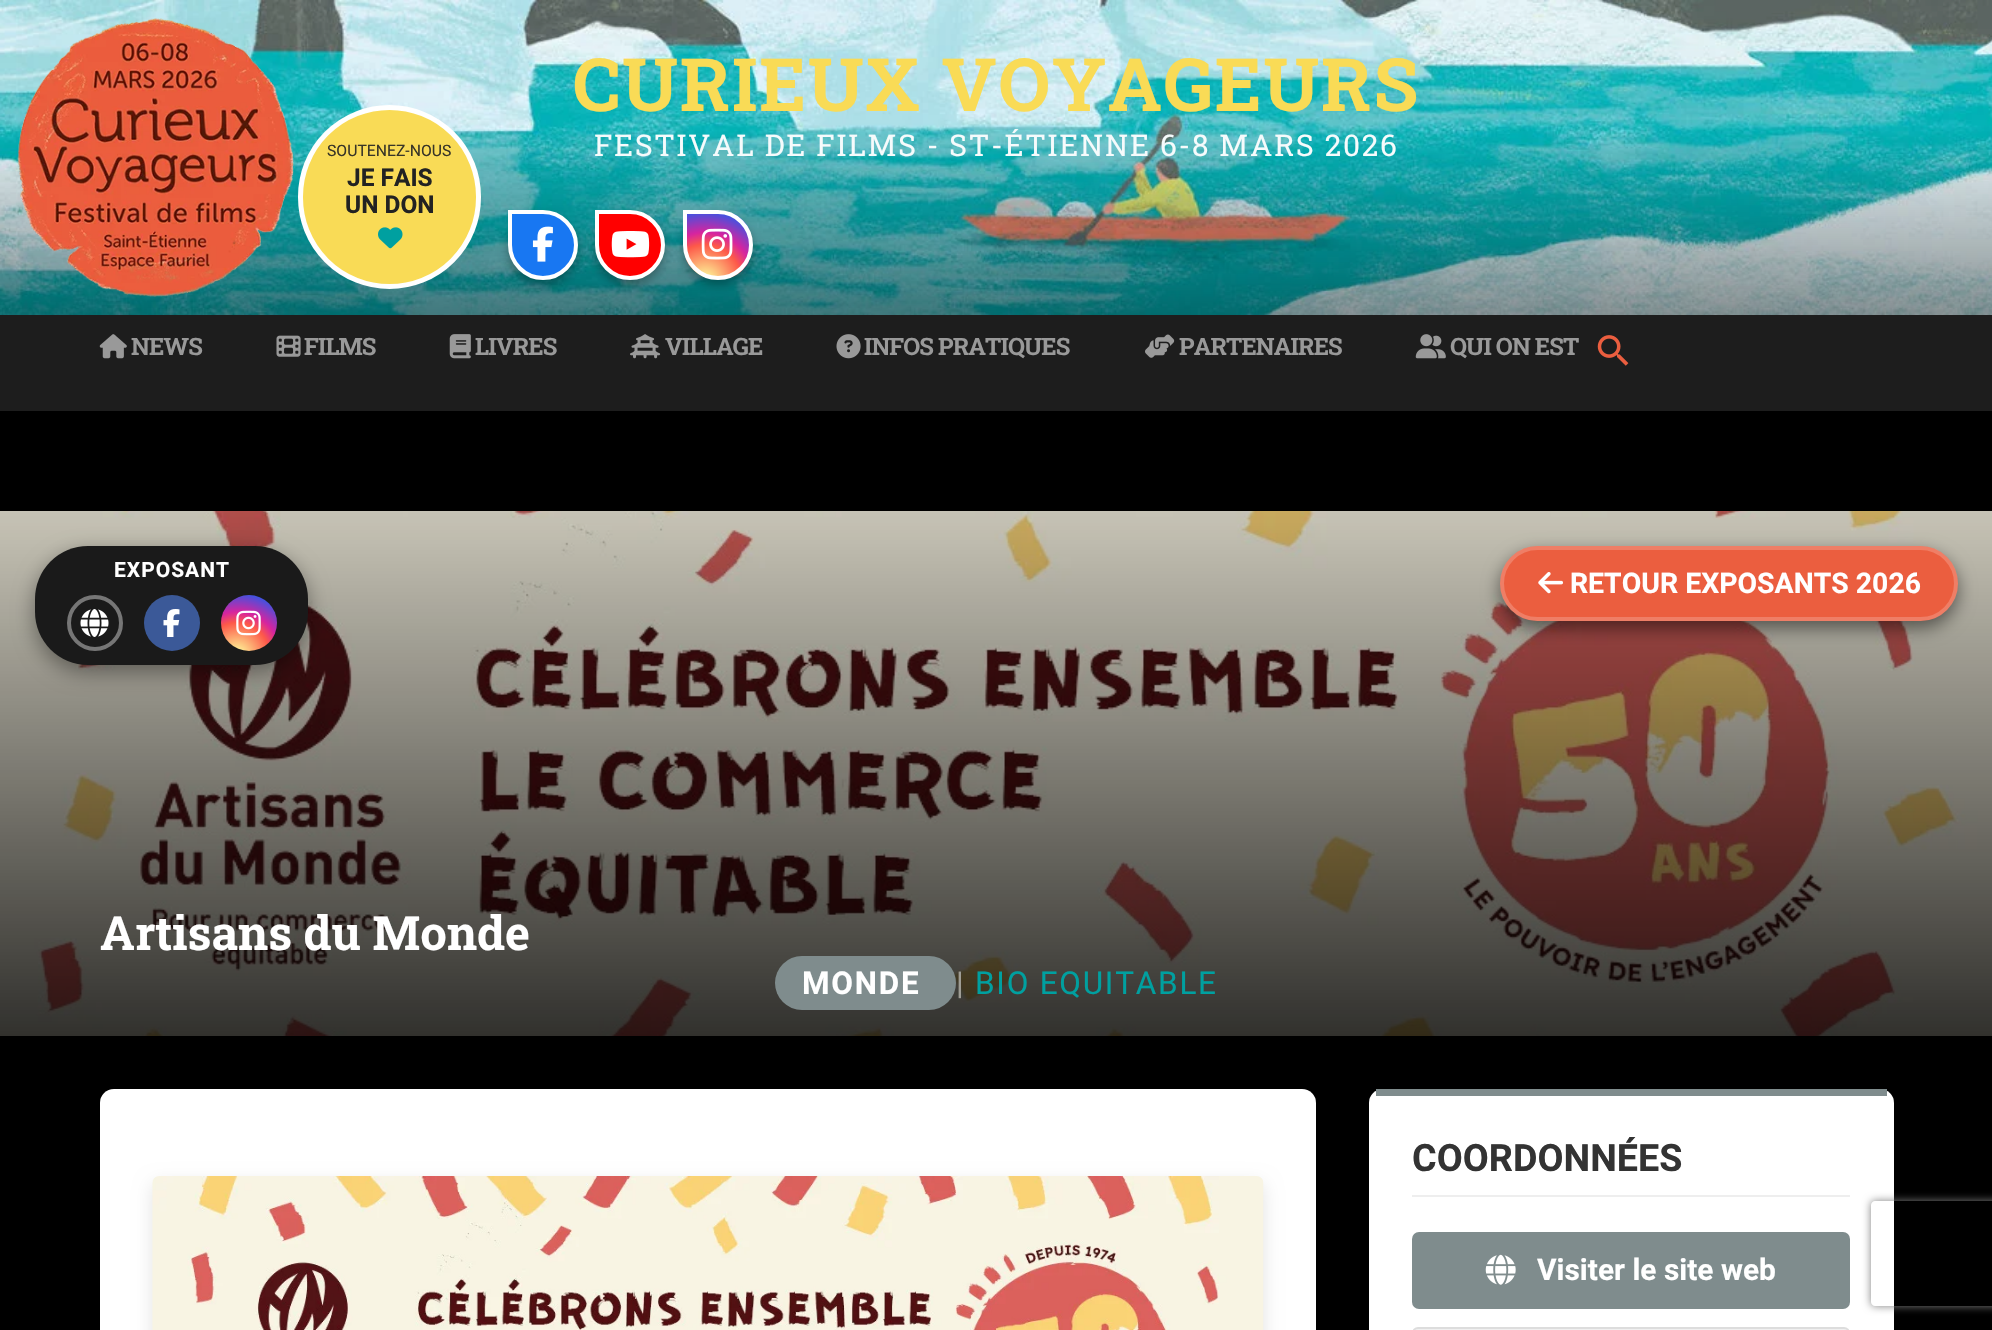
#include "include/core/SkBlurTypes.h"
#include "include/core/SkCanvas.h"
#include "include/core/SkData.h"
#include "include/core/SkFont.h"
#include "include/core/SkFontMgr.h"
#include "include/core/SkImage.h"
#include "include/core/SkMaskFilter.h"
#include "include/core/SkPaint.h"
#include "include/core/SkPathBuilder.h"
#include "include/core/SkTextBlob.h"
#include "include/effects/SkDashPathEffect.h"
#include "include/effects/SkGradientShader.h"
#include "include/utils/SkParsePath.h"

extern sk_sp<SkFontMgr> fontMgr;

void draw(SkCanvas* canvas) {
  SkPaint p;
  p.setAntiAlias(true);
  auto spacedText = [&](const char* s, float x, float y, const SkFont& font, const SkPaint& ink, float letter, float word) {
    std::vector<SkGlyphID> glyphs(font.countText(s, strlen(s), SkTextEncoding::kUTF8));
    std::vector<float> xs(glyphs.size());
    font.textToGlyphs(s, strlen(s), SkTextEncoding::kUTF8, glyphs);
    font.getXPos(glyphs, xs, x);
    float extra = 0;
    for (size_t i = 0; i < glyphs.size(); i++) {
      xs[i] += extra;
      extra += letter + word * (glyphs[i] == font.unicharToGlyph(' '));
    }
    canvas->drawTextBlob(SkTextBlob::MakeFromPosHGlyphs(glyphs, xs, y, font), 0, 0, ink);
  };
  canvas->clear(SK_ColorBLACK);
  canvas->drawImageRect(SkImages::DeferredFromEncodedData(SkData::MakeFromFileName("images/1.png")), SkRect::MakeLTRB(0, 0, 1992, 315), SkSamplingOptions());
  canvas->drawImageRect(SkImages::DeferredFromEncodedData(SkData::MakeFromFileName("images/2.png")), SkRect::MakeLTRB(17, 18, 294, 297), SkSamplingOptions());
  p.setColor(SkColorSetRGB(249, 219, 86));
  canvas->drawRoundRect(SkRect::MakeLTRB(300.5f, 107.5f, 478.5f, 286.5f), 89, 89, p);
  p.setStyle(SkPaint::kStroke_Style);
  p.setStrokeWidth(5);
  p.setColor(SK_ColorWHITE);
  canvas->drawRoundRect(SkRect::MakeLTRB(300.5f, 107.5f, 478.5f, 286.5f), 89, 89, p);
  canvas->drawImageRect(SkImages::DeferredFromEncodedData(SkData::MakeFromFileName("images/3.png")), SkRect::MakeLTRB(378, 227, 403, 249), SkSamplingOptions());
  p.setStyle(SkPaint::kFill_Style);
  p.setColor(SkColorSetARGB(77, 0, 0, 0));
  p.setMaskFilter(SkMaskFilter::MakeBlur(kNormal_SkBlurStyle, 5));
  canvas->drawRoundRect(SkRect::MakeLTRB(508, 215, 578, 285), 35, 35, p);
  p.setMaskFilter(nullptr);
  p.setColor(SkColorSetRGB(24, 119, 242));
  canvas->drawPath(SkPathBuilder().moveTo(510, 212).lineTo(543, 212).cubicTo(561, 212, 576, 227, 576, 245).cubicTo(576, 263, 561, 278, 543, 278).cubicTo(525, 278, 510, 263, 510, 245).close().detach(), p);
  p.setStyle(SkPaint::kStroke_Style);
  p.setStrokeWidth(4);
  p.setColor(SK_ColorWHITE);
  canvas->drawPath(SkPathBuilder().moveTo(510, 212).lineTo(543, 212).cubicTo(561, 212, 576, 227, 576, 245).cubicTo(576, 263, 561, 278, 543, 278).cubicTo(525, 278, 510, 263, 510, 245).close().detach(), p);
  canvas->drawImageRect(SkImages::DeferredFromEncodedData(SkData::MakeFromFileName("images/4.png")), SkRect::MakeLTRB(532, 226, 553, 262), SkSamplingOptions());
  p.setStyle(SkPaint::kFill_Style);
  p.setColor(SkColorSetARGB(77, 0, 0, 0));
  p.setMaskFilter(SkMaskFilter::MakeBlur(kNormal_SkBlurStyle, 5));
  canvas->drawRoundRect(SkRect::MakeLTRB(595, 215, 665, 285), 35, 35, p);
  p.setMaskFilter(nullptr);
  p.setColor(SkColorSetRGB(255, 0, 0));
  canvas->drawPath(SkPathBuilder().moveTo(597, 212).lineTo(630, 212).cubicTo(648, 212, 663, 227, 663, 245).cubicTo(663, 263, 648, 278, 630, 278).cubicTo(612, 278, 597, 263, 597, 245).close().detach(), p);
  p.setStyle(SkPaint::kStroke_Style);
  p.setColor(SK_ColorWHITE);
  canvas->drawPath(SkPathBuilder().moveTo(597, 212).lineTo(630, 212).cubicTo(648, 212, 663, 227, 663, 245).cubicTo(663, 263, 648, 278, 630, 278).cubicTo(612, 278, 597, 263, 597, 245).close().detach(), p);
  canvas->drawImageRect(SkImages::DeferredFromEncodedData(SkData::MakeFromFileName("images/5.png")), SkRect::MakeLTRB(611, 231, 650, 258), SkSamplingOptions());
  p.setStyle(SkPaint::kFill_Style);
  p.setColor(SkColorSetARGB(77, 0, 0, 0));
  p.setMaskFilter(SkMaskFilter::MakeBlur(kNormal_SkBlurStyle, 5));
  canvas->drawRoundRect(SkRect::MakeLTRB(683, 215, 753, 285), 35, 35, p);
  p.setMaskFilter(nullptr);
  canvas->save();
  canvas->clipPath(SkPathBuilder().moveTo(683, 210).lineTo(718, 210).cubicTo(737.5f, 210, 753, 225.5f, 753, 245).cubicTo(753, 264.5f, 737.5f, 280, 718, 280).cubicTo(698.5f, 280, 683, 264.5f, 683, 245).close().detach(), true);
  {
    const SkColor colors[] = {SkColorSetRGB(253, 244, 151), SkColorSetRGB(253, 244, 151), SkColorSetRGB(253, 89, 73), SkColorSetRGB(214, 36, 159), SkColorSetRGB(40, 90, 235)};
    const float stops[] = {0, 0.05f, 0.45f, 0.6f, 0.9f};
    p.setShader(SkGradientShader::MakeRadial({705, 281}, 81, colors, stops, 5, SkTileMode::kClamp));
    p.setAlpha(255);
  }
  canvas->drawRect(SkRect::MakeLTRB(686, 214, 749, 277), p);
  canvas->restore();
  p.setStyle(SkPaint::kStroke_Style);
  p.setShader(nullptr);
  p.setColor(SK_ColorWHITE);
  canvas->drawPath(SkPathBuilder().moveTo(685, 212).lineTo(718, 212).cubicTo(736, 212, 751, 227, 751, 245).cubicTo(751, 263, 736, 278, 718, 278).cubicTo(700, 278, 685, 263, 685, 245).close().detach(), p);
  canvas->drawImageRect(SkImages::DeferredFromEncodedData(SkData::MakeFromFileName("images/6.png")), SkRect::MakeLTRB(701, 228, 733, 260), SkSamplingOptions());
  p.setStyle(SkPaint::kFill_Style);
  p.setColor(SkColorSetRGB(29, 29, 29));
  canvas->drawRect(SkRect::MakeLTRB(0, 315, 1992, 411), p);
  canvas->drawImageRect(SkImages::DeferredFromEncodedData(SkData::MakeFromFileName("images/7.png")), SkRect::MakeLTRB(99, 334, 127, 359), SkSamplingOptions());
  canvas->drawImageRect(SkImages::DeferredFromEncodedData(SkData::MakeFromFileName("images/8.png")), SkRect::MakeLTRB(276, 335, 301, 357), SkSamplingOptions());
  canvas->drawImageRect(SkImages::DeferredFromEncodedData(SkData::MakeFromFileName("images/9.png")), SkRect::MakeLTRB(449, 334, 471, 359), SkSamplingOptions());
  canvas->drawImageRect(SkImages::DeferredFromEncodedData(SkData::MakeFromFileName("images/10.png")), SkRect::MakeLTRB(630, 334, 661, 359), SkSamplingOptions());
  canvas->drawImageRect(SkImages::DeferredFromEncodedData(SkData::MakeFromFileName("images/11.png")), SkRect::MakeLTRB(836, 334, 861, 359), SkSamplingOptions());
  canvas->drawImageRect(SkImages::DeferredFromEncodedData(SkData::MakeFromFileName("images/12.png")), SkRect::MakeLTRB(1145, 334, 1175, 358), SkSamplingOptions());
  canvas->drawImageRect(SkImages::DeferredFromEncodedData(SkData::MakeFromFileName("images/13.png")), SkRect::MakeLTRB(1415, 334, 1446, 359), SkSamplingOptions());
  canvas->drawImageRect(SkImages::DeferredFromEncodedData(SkData::MakeFromFileName("images/14.png")), SkRect::MakeLTRB(1597, 335, 1629, 366), SkSamplingOptions());
  canvas->drawImageRect(SkImages::DeferredFromEncodedData(SkData::MakeFromFileName("images/15.png")), SkRect::MakeLTRB(0, 511, 1992, 1036), SkSamplingOptions());
  p.setColor(SkColorSetARGB(102, 0, 0, 0));
  p.setMaskFilter(SkMaskFilter::MakeBlur(kNormal_SkBlurStyle, 10.5f));
  canvas->drawRoundRect(SkRect::MakeLTRB(35, 553, 308, 672), 53, 53, p);
  p.setMaskFilter(nullptr);
  p.setColor(SkColorSetRGB(26, 26, 26));
  canvas->drawRoundRect(SkRect::MakeLTRB(35, 546, 308, 665), 53, 53, p);
  p.setStyle(SkPaint::kStroke_Style);
  p.setColor(SkColorSetRGB(118, 118, 118));
  canvas->drawCircle(95, 623, 26, p);
  canvas->drawImageRect(SkImages::DeferredFromEncodedData(SkData::MakeFromFileName("images/16.png")), SkRect::MakeLTRB(80, 609, 109, 637), SkSamplingOptions());
  p.setStyle(SkPaint::kFill_Style);
  p.setColor(SkColorSetRGB(59, 89, 152));
  canvas->drawCircle(172, 623, 28, p);
  canvas->drawImageRect(SkImages::DeferredFromEncodedData(SkData::MakeFromFileName("images/17.png")), SkRect::MakeLTRB(163, 609, 180, 637), SkSamplingOptions());
  {
    const SkColor colors[] = {SkColorSetRGB(253, 244, 151), SkColorSetRGB(253, 244, 151), SkColorSetRGB(253, 89, 73), SkColorSetRGB(214, 36, 159), SkColorSetRGB(40, 90, 235)};
    const float stops[] = {0, 0.05f, 0.45f, 0.6f, 0.9f};
    p.setShader(SkGradientShader::MakeRadial({237, 655}, 72, colors, stops, 5, SkTileMode::kClamp));
    p.setAlpha(255);
  }
  canvas->drawCircle(249, 623, 28, p);
  canvas->drawImageRect(SkImages::DeferredFromEncodedData(SkData::MakeFromFileName("images/18.png")), SkRect::MakeLTRB(236, 610, 261, 636), SkSamplingOptions());
  p.setShader(nullptr);
  p.setColor(SkColorSetARGB(128, 0, 0, 0));
  p.setMaskFilter(SkMaskFilter::MakeBlur(kNormal_SkBlurStyle, 9));
  canvas->drawRoundRect(SkRect::MakeLTRB(1500, 553, 1958, 628), 37.5f, 37.5f, p);
  p.setMaskFilter(nullptr);
  p.setColor(SkColorSetRGB(235, 94, 63));
  canvas->drawRoundRect(SkRect::MakeLTRB(1500, 546, 1958, 621), 37.5f, 37.5f, p);
  p.setStyle(SkPaint::kStroke_Style);
  p.setColor(SkColorSetARGB(51, 255, 255, 255));
  canvas->drawRoundRect(SkRect::MakeLTRB(1502, 548, 1956, 619), 35.5f, 35.5f, p);
  canvas->drawImageRect(SkImages::DeferredFromEncodedData(SkData::MakeFromFileName("images/19.png")), SkRect::MakeLTRB(1538, 572, 1563, 594), SkSamplingOptions());
  p.setStyle(SkPaint::kFill_Style);
  p.setColor(SkColorSetRGB(127, 140, 141));
  canvas->drawRoundRect(SkRect::MakeLTRB(775, 956, 956, 1010), 27, 27, p);
  p.setColor(SK_ColorWHITE);
  canvas->drawRoundRect(SkRect::MakeLTRB(100, 1089, 1316, 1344), 14, 14, p);
  p.setColor(SkColorSetARGB(26, 0, 0, 0));
  p.setMaskFilter(SkMaskFilter::MakeBlur(kNormal_SkBlurStyle, 9));
  canvas->drawRoundRect(SkRect::MakeLTRB(152, 1183, 1264, 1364), 7, 7, p);
  p.setMaskFilter(nullptr);
  canvas->drawImageRect(SkImages::DeferredFromEncodedData(SkData::MakeFromFileName("images/20.png")), SkRect::MakeLTRB(152, 1176, 1264, 1330), SkSamplingOptions());
  p.setColor(SK_ColorWHITE);
  canvas->drawRoundRect(SkRect::MakeLTRB(1369, 1089, 1894, 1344), 14, 14, p);
  p.setColor(SkColorSetRGB(127, 140, 141));
  canvas->drawRect(SkRect::MakeLTRB(1376, 1089, 1887, 1096), p);
  p.setColor(SkColorSetRGB(238, 238, 238));
  canvas->drawRect(SkRect::MakeLTRB(1412, 1195, 1850, 1197), p);
  p.setColor(SkColorSetRGB(127, 140, 141));
  canvas->drawRoundRect(SkRect::MakeLTRB(1412, 1232, 1850, 1309), 7, 7, p);
  canvas->drawImageRect(SkImages::DeferredFromEncodedData(SkData::MakeFromFileName("images/21.png")), SkRect::MakeLTRB(1485, 1254, 1516, 1285), SkSamplingOptions());
  p.setColor(SkColorSetRGB(240, 240, 240));
  canvas->drawRoundRect(SkRect::MakeLTRB(1413, 1328, 1849, 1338), 6, 6, p);
  p.setStyle(SkPaint::kStroke_Style);
  p.setStrokeWidth(2);
  p.setColor(SkColorSetRGB(221, 221, 221));
  canvas->drawRoundRect(SkRect::MakeLTRB(1413, 1328, 1849, 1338), 6, 6, p);
  canvas->save();
  canvas->clipPath(SkPathBuilder(SkPathFillType::kEvenOdd).moveTo(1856, 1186).lineTo(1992, 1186).lineTo(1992, 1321).lineTo(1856, 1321).close().moveTo(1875, 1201).lineTo(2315, 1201).cubicTo(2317, 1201, 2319, 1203, 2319, 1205).lineTo(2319, 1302).cubicTo(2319, 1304, 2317, 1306, 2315, 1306).lineTo(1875, 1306).cubicTo(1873, 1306, 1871, 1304, 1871, 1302).lineTo(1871, 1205).cubicTo(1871, 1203, 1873, 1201, 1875, 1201).close().detach(), true);
  p.setStyle(SkPaint::kFill_Style);
  p.setColor(SkColorSetRGB(128, 128, 128));
  p.setMaskFilter(SkMaskFilter::MakeBlur(kNormal_SkBlurStyle, 4.5f));
  canvas->drawRoundRect(SkRect::MakeLTRB(1871, 1201, 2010, 1306), 4, 4, p);
  p.setMaskFilter(nullptr);
  canvas->restore();
  SkFont font1(fontMgr->matchFamilyStyle("Roboto Slab", SkFontStyle::Bold()), 73.5f);
  font1.setSubpixel(true);
  p.setColor(SkColorSetRGB(249, 219, 86));
  spacedText("CURIEUX VOYAGEURS", 573, 111, font1, p, 1.75f, 0);
  SkFont font2(fontMgr->matchFamilyStyle("Roboto Slab", SkFontStyle::Normal()), 29.9f);
  font2.setSubpixel(true);
  p.setColor(SkColorSetRGB(246, 251, 252));
  spacedText("FESTIVAL DE FILMS - ST-ÉTIENNE 6-8 MARS 2026", 594, 156, font2, p, 1.75f, 0);
  SkFont font3(fontMgr->matchFamilyStyle("Roboto", SkFontStyle::Normal()), 15.75f);
  font3.setSubpixel(true);
  p.setColor(SkColorSetRGB(56, 53, 39));
  canvas->drawString("SOUTENEZ-NOUS", 327, 156, font3, p);
  SkFont font4(fontMgr->matchFamilyStyle("Roboto", SkFontStyle::Bold()), 24.5f);
  font4.setSubpixel(true);
  p.setColor(SkColorSetRGB(34, 34, 34));
  canvas->drawString("JE FAIS", 347, 186, font4, p);
  canvas->drawString("UN DON", 345, 213, font4, p);
  SkFont font5(fontMgr->matchFamilyStyle("Roboto Slab", SkFontStyle::Bold()), 24);
  font5.setSubpixel(true);
  p.setColor(SkColorSetRGB(153, 153, 153));
  spacedText("NEWS", 131, 355, font5, p, -0.9f, 0);
  spacedText("FILMS", 304, 355, font5, p, -0.9f, 0);
  spacedText("LIVRES", 475, 355, font5, p, -0.9f, 0);
  spacedText("VILLAGE", 665, 355, font5, p, -0.9f, 0);
  spacedText("INFOS PRATIQUES", 864, 355, font5, p, -0.9f, 0);
  spacedText("PARTENAIRES", 1179, 355, font5, p, -0.9f, 0);
  spacedText("QUI ON EST", 1450, 355, font5, p, -0.9f, 0);
  SkFont font6(fontMgr->matchFamilyStyle("Roboto", SkFontStyle::Bold()), 21);
  font6.setSubpixel(true);
  p.setColor(SK_ColorWHITE);
  spacedText("EXPOSANT", 114, 577, font6, p, 1, 0);
  SkFont font7(fontMgr->matchFamilyStyle("Roboto", SkFontStyle::Bold()), 28.4f);
  font7.setSubpixel(true);
  canvas->drawString("RETOUR EXPOSANTS 2026", 1570, 593, font7, p);
  SkFont font8(fontMgr->matchFamilyStyle("Roboto Slab", SkFontStyle::Bold()), 47.25f);
  font8.setSubpixel(true);
  canvas->drawString("Artisans du Monde", 100, 950, font8, p);
  SkFont font9(fontMgr->matchFamilyStyle("Roboto", SkFontStyle::Bold()), 31.5f);
  font9.setSubpixel(true);
  spacedText("MONDE", 802, 994, font9, p, 1.75f, 0);
  SkFont font10(fontMgr->matchFamilyStyle("Roboto", SkFontStyle::Normal()), 31.5f);
  font10.setSubpixel(true);
  p.setColor(SkColorSetRGB(159, 157, 149));
  spacedText("|", 956, 994, font10, p, 1.75f, 0);
  p.setColor(SkColorSetRGB(0, 160, 160));
  spacedText("BIO EQUITABLE", 975, 994, font10, p, 1.75f, 0);
  SkFont font11(fontMgr->matchFamilyStyle("Roboto", SkFontStyle::Bold()), 37.75f);
  font11.setSubpixel(true);
  p.setColor(SkColorSetRGB(51, 51, 51));
  canvas->drawString("COORDONNÉES", 1412, 1171, font11, p);
  SkFont font12(fontMgr->matchFamilyStyle("Roboto", SkFontStyle::Bold()), 29.9f);
  font12.setSubpixel(true);
  p.setColor(SK_ColorWHITE);
  canvas->drawString("Visiter le site web", 1537, 1280, font12, p);
}
